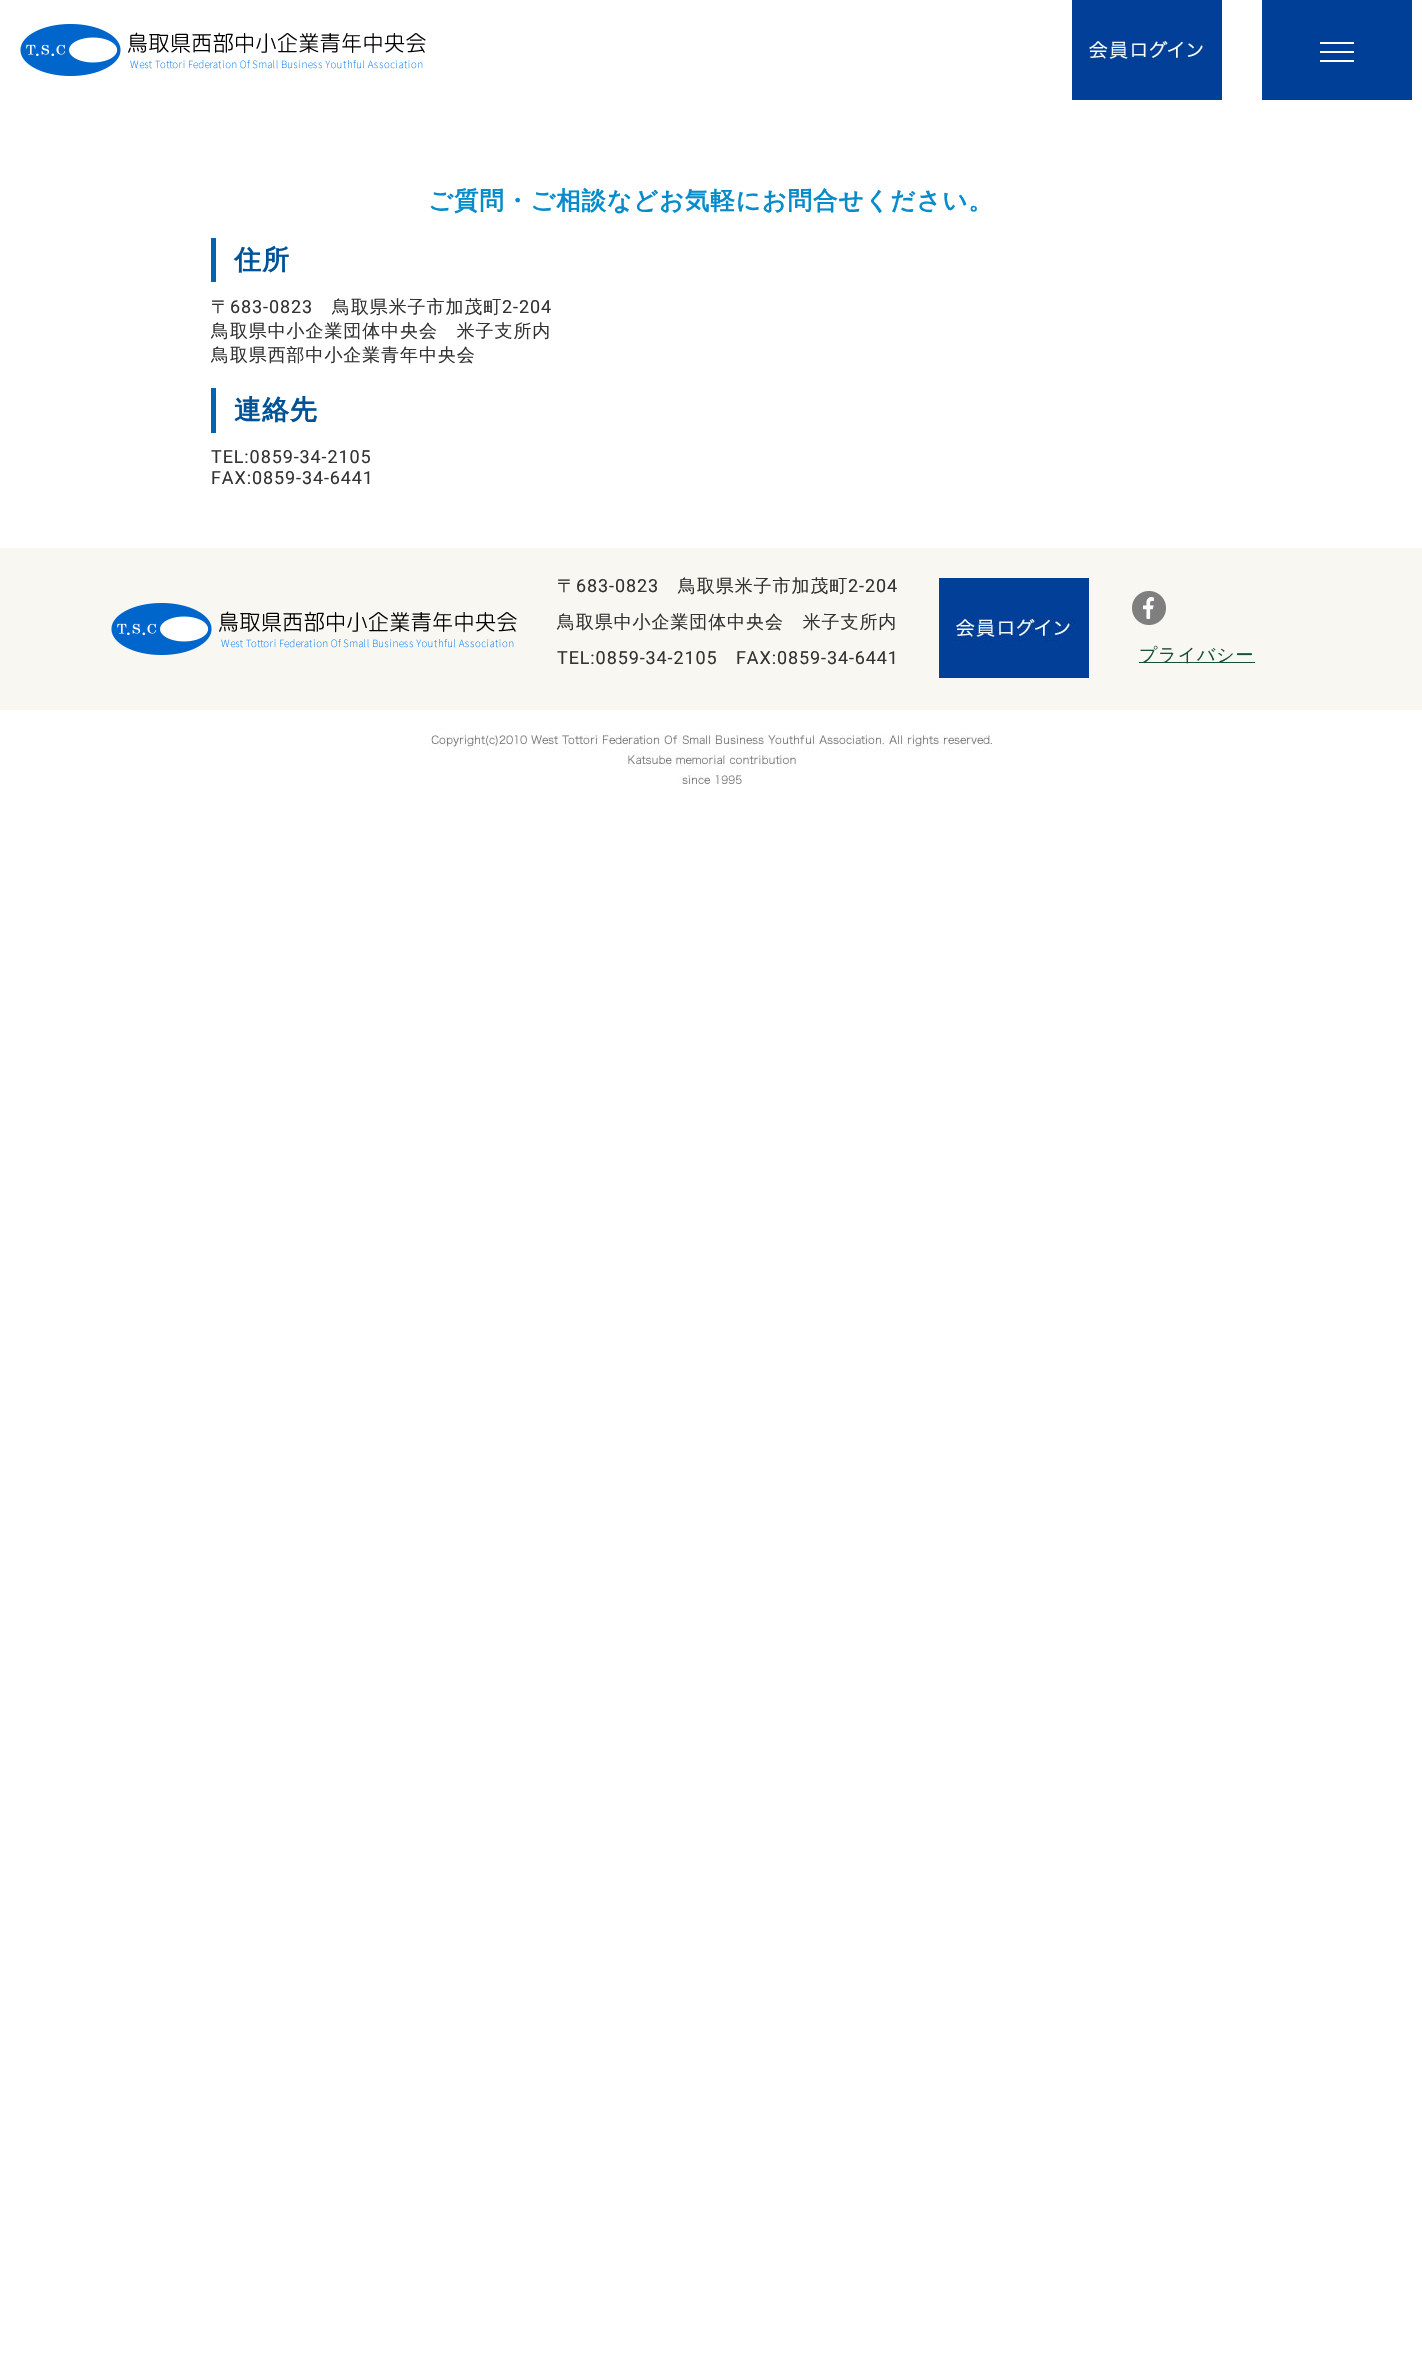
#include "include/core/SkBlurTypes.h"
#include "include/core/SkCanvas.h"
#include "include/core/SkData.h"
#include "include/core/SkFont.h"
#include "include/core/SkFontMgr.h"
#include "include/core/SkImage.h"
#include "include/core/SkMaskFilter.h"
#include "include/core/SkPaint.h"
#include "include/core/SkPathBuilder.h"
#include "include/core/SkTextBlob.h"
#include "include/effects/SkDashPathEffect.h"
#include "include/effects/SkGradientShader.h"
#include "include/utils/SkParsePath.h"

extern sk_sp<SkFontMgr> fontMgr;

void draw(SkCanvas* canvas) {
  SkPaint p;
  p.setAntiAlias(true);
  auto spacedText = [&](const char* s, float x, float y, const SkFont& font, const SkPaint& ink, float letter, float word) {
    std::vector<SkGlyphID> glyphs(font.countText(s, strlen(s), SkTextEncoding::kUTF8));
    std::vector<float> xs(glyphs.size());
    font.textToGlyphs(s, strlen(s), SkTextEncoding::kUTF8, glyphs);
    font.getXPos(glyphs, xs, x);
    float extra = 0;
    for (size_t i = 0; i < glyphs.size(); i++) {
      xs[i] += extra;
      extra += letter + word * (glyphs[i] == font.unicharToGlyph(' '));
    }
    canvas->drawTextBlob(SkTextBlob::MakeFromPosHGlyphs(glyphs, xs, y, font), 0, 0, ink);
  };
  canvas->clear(SK_ColorWHITE);
  canvas->drawImageRect(SkImages::DeferredFromEncodedData(SkData::MakeFromFileName("images/1.png")), SkRect::MakeLTRB(20, 24, 426, 76), SkSamplingOptions());
  canvas->drawImageRect(SkImages::DeferredFromEncodedData(SkData::MakeFromFileName("images/2.png")), SkRect::MakeLTRB(1072, 0, 1222, 100), SkSamplingOptions());
  p.setColor(SkColorSetRGB(0, 63, 152));
  canvas->drawRect(SkRect::MakeLTRB(1262, 0, 1412, 100), p);
  p.setColor(SK_ColorWHITE);
  canvas->drawRect(SkRect::MakeLTRB(1320, 42, 1354, 44), p);
  canvas->drawRect(SkRect::MakeLTRB(1320, 51, 1354, 53), p);
  canvas->drawRect(SkRect::MakeLTRB(1320, 60, 1354, 62), p);
  p.setColor(SkColorSetRGB(0, 100, 181));
  canvas->drawRect(SkRect::MakeLTRB(211, 238, 216, 282), p);
  canvas->drawRect(SkRect::MakeLTRB(211, 388, 216, 433), p);
  p.setColor(SkColorSetRGB(248, 247, 241));
  canvas->drawRect(SkRect::MakeLTRB(0, 548, 1422, 710), p);
  canvas->drawImageRect(SkImages::DeferredFromEncodedData(SkData::MakeFromFileName("images/3.png")), SkRect::MakeLTRB(111, 603, 517, 655), SkSamplingOptions());
  canvas->drawImageRect(SkImages::DeferredFromEncodedData(SkData::MakeFromFileName("images/2.png")), SkRect::MakeLTRB(939, 578, 1089, 678), SkSamplingOptions());
  canvas->drawImageRect(SkImages::DeferredFromEncodedData(SkData::MakeFromFileName("images/4.png")), SkRect::MakeLTRB(1132, 591, 1166, 625), SkSamplingOptions());
  p.setColor(SkColorSetRGB(25, 81, 56));
  canvas->drawRect(SkRect::MakeLTRB(1139, 662, 1255, 663), p);
  canvas->drawImageRect(SkImages::DeferredFromEncodedData(SkData::MakeFromFileName("images/5.png")), SkRect::MakeLTRB(431, 735, 992, 784), SkSamplingOptions());
  SkFont font1(fontMgr->matchFamilyStyle("WenQuanYi Zen Hei", SkFontStyle::Bold()), 24.5f);
  font1.setSubpixel(true);
  p.setColor(SkColorSetRGB(6, 140, 202));
  spacedText("ご質問・ご相談などお気軽にお問合せください。", 428, 209, font1, p, 0.9f, 0);
  SkFont font2(fontMgr->matchFamilyStyle("WenQuanYi Zen Hei", SkFontStyle::Bold()), 27);
  font2.setSubpixel(true);
  p.setColor(SkColorSetRGB(0, 82, 151));
  spacedText("住所", 234, 269, font2, p, 0.9f, 0);
  SkFont font3(fontMgr->matchFamilyStyle("WenQuanYi Zen Hei", SkFontStyle(500, SkFontStyle::kNormal_Width, SkFontStyle::kUpright_Slant)), 18);
  font3.setSubpixel(true);
  p.setColor(SkColorSetRGB(51, 51, 51));
  spacedText("〒", 211, 313, font3, p, 0.9f, 0);
  SkFont font4(fontMgr->matchFamilyStyle("Roboto", SkFontStyle::Normal()), 18);
  font4.setSubpixel(true);
  spacedText("683-0823", 230, 313, font4, p, 0.9f, 0);
  spacedText("鳥取県米子市加茂町", 332, 313, font3, p, 0.9f, 0);
  spacedText("2-204", 502, 313, font4, p, 0.9f, 0);
  spacedText("鳥取県中小企業団体中央会　米子支所内", 211, 337, font3, p, 0.9f, 0);
  spacedText("鳥取県西部中小企業青年中央会", 211, 361, font3, p, 0.9f, 0);
  p.setColor(SkColorSetRGB(0, 82, 151));
  spacedText("連絡先", 234, 419, font2, p, 0.9f, 0);
  p.setColor(SkColorSetRGB(51, 51, 51));
  spacedText("TEL:0859-34-2105", 211, 463, font4, p, 0.9f, 0);
  spacedText("FAX:0859-34-6441", 211, 484, font4, p, 0.9f, 0);
  spacedText("〒", 557, 592, font3, p, 0.9f, 0);
  spacedText("683-0823", 576, 592, font4, p, 0.9f, 0);
  spacedText("鳥取県米子市加茂町", 678, 592, font3, p, 0.9f, 0);
  spacedText("2-204", 848, 592, font4, p, 0.9f, 0);
  spacedText("鳥取県中小企業団体中央会　米子支所内", 557, 628, font3, p, 0.9f, 0);
  spacedText("TEL:0859-34-2105", 557, 664, font4, p, 0.9f, 0);
  spacedText("FAX:0859-34-6441", 736, 664, font4, p, 0.9f, 0);
  p.setColor(SkColorSetRGB(25, 81, 56));
  spacedText("プライバシー", 1139, 661, font3, p, 0.9f, 0);
}
